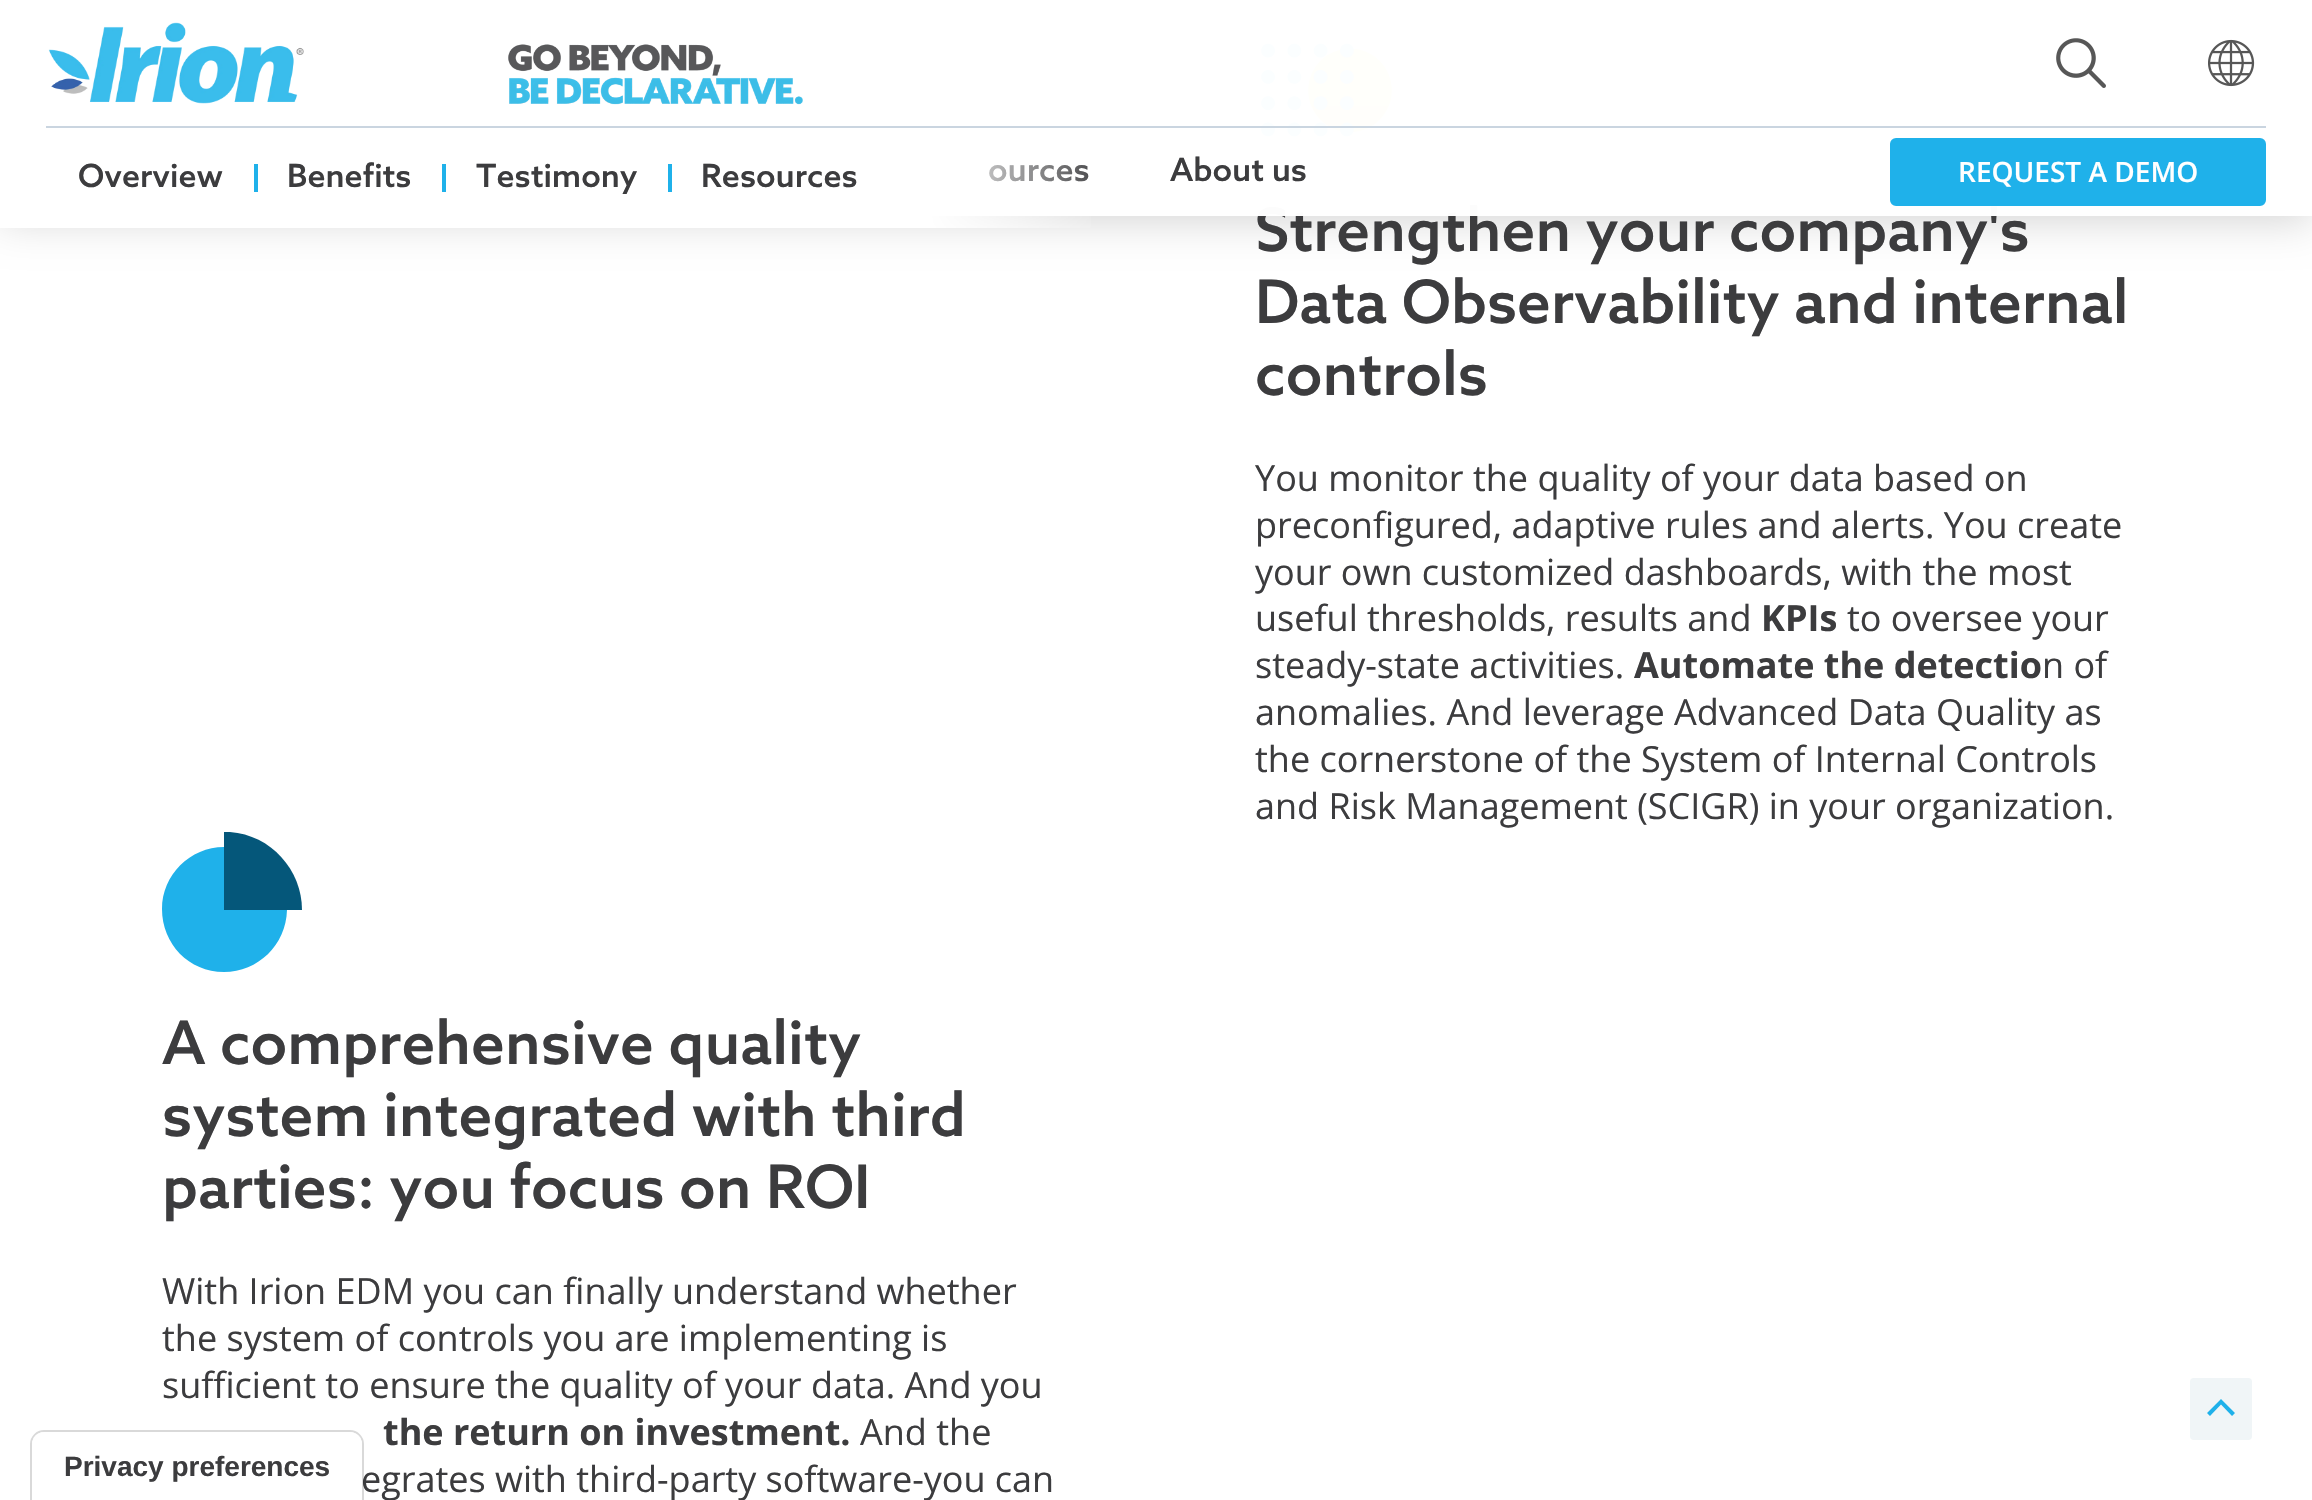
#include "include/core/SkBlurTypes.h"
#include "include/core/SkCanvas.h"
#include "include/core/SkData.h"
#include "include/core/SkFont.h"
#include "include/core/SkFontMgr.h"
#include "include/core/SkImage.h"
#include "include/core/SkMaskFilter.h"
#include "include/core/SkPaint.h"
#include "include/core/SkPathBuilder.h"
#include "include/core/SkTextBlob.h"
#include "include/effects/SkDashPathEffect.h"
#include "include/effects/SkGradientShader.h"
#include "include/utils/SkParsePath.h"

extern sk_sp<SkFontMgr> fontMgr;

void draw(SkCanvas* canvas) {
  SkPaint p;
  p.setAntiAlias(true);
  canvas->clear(SK_ColorWHITE);
  canvas->drawImageRect(SkImages::DeferredFromEncodedData(SkData::MakeFromFileName("images/5.png")), SkRect::MakeLTRB(1261, 43, 1392, 137), SkSamplingOptions());
  canvas->save();
  canvas->clipPath(SkPathBuilder(SkPathFillType::kEvenOdd).moveTo(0, 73).lineTo(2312, 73).lineTo(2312, 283).lineTo(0, 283).close().moveTo(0, 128).lineTo(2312, 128).lineTo(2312, 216).lineTo(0, 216).close().detach(), true);
  p.setColor(SkColorSetARGB(41, 0, 0, 0));
  p.setMaskFilter(SkMaskFilter::MakeBlur(kNormal_SkBlurStyle, 20));
  canvas->drawRect(SkRect::MakeLTRB(0, 134, 2312, 222), p);
  p.setMaskFilter(nullptr);
  canvas->restore();
  p.setColor(SkColorSetARGB(250, 255, 255, 255));
  canvas->drawRect(SkRect::MakeLTRB(0, 43, 2312, 128), p);
  p.setColor(SkColorSetRGB(202, 213, 224));
  canvas->drawRect(SkRect::MakeLTRB(46, 126, 2266, 128), p);
  canvas->drawImageRect(SkImages::DeferredFromEncodedData(SkData::MakeFromFileName("images/1.png")), SkRect::MakeLTRB(48, 22, 304, 104), SkSamplingOptions());
  canvas->drawImageRect(SkImages::DeferredFromEncodedData(SkData::MakeFromFileName("images/2.png")), SkRect::MakeLTRB(508, 44, 803, 105), SkSamplingOptions());
  canvas->drawImageRect(SkImages::DeferredFromEncodedData(SkData::MakeFromFileName("images/3.png")), SkRect::MakeLTRB(2056, 38, 2106, 88), SkSamplingOptions());
  canvas->drawImageRect(SkImages::DeferredFromEncodedData(SkData::MakeFromFileName("images/4.png")), SkRect::MakeLTRB(2208, 39, 2255, 87), SkSamplingOptions());
  p.setColor(SkColorSetRGB(31, 177, 234));
  canvas->drawPath(SkPathBuilder().moveTo(224, 847).lineTo(229, 847).lineTo(224, 847).cubicTo(190, 847, 162, 875, 162, 909).cubicTo(162, 944, 189, 972, 224, 972).cubicTo(258, 972, 286, 945, 287, 910).lineTo(224, 910).close().detach(), p);
  p.setColor(SkColorSetRGB(5, 87, 122));
  canvas->drawPath(SkPathBuilder().moveTo(230, 832).lineTo(224, 832).lineTo(224, 910).lineTo(302, 910).cubicTo(302, 870, 271, 835, 230, 832).close().detach(), p);
  p.setColor(SkColorSetRGB(240, 245, 247));
  canvas->drawRoundRect(SkRect::MakeLTRB(2190, 1378, 2252, 1440), 4, 4, p);
  p.setColor(SkColorSetRGB(31, 177, 234));
  canvas->drawPath(SkPathBuilder().moveTo(2235, 1413).lineTo(2221, 1399).lineTo(2207, 1413).lineTo(2210, 1416).lineTo(2221, 1404.5f).lineTo(2232, 1416).close().detach(), p);
  SkFont font1(fontMgr->matchFamilyStyle("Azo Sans", SkFontStyle(500, SkFontStyle::kNormal_Width, SkFontStyle::kUpright_Slant)), 32);
  font1.setSubpixel(true);
  p.setColor(SkColorSetRGB(60, 60, 62));
  canvas->drawString("ources", 988, 181, font1, p);
  {
    const SkColor colors[] = {SK_ColorWHITE, SkColorSetARGB(0, 255, 255, 255)};
    const float stops[] = {0.5f, 0.6f};
    const SkPoint ends[] = {{0, 178}, {1850, 178}};
    p.setShader(SkGradientShader::MakeLinear(ends, colors, stops, 2, SkTileMode::kClamp));
    p.setAlpha(255);
  }
  canvas->drawRect(SkRect::MakeLTRB(0, 164, 1091, 228), p);
  p.setShader(nullptr);
  p.setColor(SkColorSetRGB(60, 60, 62));
  canvas->drawString("Overview", 78, 187, font1, p);
  p.setColor(SkColorSetRGB(31, 177, 234));
  canvas->drawRect(SkRect::MakeLTRB(254, 164, 258, 192), p);
  p.setColor(SkColorSetRGB(60, 60, 62));
  canvas->drawString("Benefits", 287, 187, font1, p);
  p.setColor(SkColorSetRGB(31, 177, 234));
  canvas->drawRect(SkRect::MakeLTRB(442, 164, 446, 192), p);
  p.setColor(SkColorSetRGB(60, 60, 62));
  canvas->drawString("Testimony", 476, 187, font1, p);
  p.setColor(SkColorSetRGB(31, 177, 234));
  canvas->drawRect(SkRect::MakeLTRB(668, 164, 672, 192), p);
  p.setColor(SkColorSetRGB(60, 60, 62));
  canvas->drawString("Resources", 701, 187, font1, p);
  SkFont font2(fontMgr->matchFamilyStyle("Azo Sans", SkFontStyle(500, SkFontStyle::kNormal_Width, SkFontStyle::kUpright_Slant)), 60);
  font2.setSubpixel(true);
  canvas->drawString("Strengthen your company's", 1255, 251, font2, p);
  p.setColor(SkColorSetARGB(250, 255, 255, 255));
  canvas->drawRect(SkRect::MakeLTRB(1258, 128, 1998, 216), p);
  p.setColor(SkColorSetRGB(60, 60, 62));
  canvas->drawString("About us", 1170, 181, font1, p);
  p.setColor(SkColorSetRGB(31, 177, 234));
  canvas->drawRoundRect(SkRect::MakeLTRB(1892, 140, 2264, 204), 4, 4, p);
  p.setStyle(SkPaint::kStroke_Style);
  p.setStrokeWidth(4);
  canvas->drawRoundRect(SkRect::MakeLTRB(1892, 140, 2264, 204), 4, 4, p);
  SkFont font3(fontMgr->matchFamilyStyle("Open Sans", SkFontStyle(600, SkFontStyle::kNormal_Width, SkFontStyle::kUpright_Slant)), 28);
  font3.setSubpixel(true);
  p.setStyle(SkPaint::kFill_Style);
  p.setColor(SK_ColorWHITE);
  canvas->drawString("REQUEST A DEMO", 1958, 182, font3, p);
  p.setColor(SkColorSetRGB(60, 60, 62));
  canvas->drawString("Data Observability and internal", 1255, 323, font2, p);
  canvas->drawString("controls", 1255, 395, font2, p);
  SkFont font4(fontMgr->matchFamilyStyle("Open Sans", SkFontStyle::Normal()), 36);
  font4.setSubpixel(true);
  canvas->drawString("You monitor the quality of your data based on", 1255, 491, font4, p);
  canvas->drawString("preconfigured, adaptive rules and alerts. You create", 1255, 538, font4, p);
  canvas->drawString("your own customized dashboards, with the most", 1255, 585, font4, p);
  canvas->drawString("useful thresholds, results and", 1255, 631, font4, p);
  SkFont font5(fontMgr->matchFamilyStyle("Open Sans", SkFontStyle::Bold()), 36);
  font5.setSubpixel(true);
  canvas->drawString("KPIs", 1761, 631, font5, p);
  canvas->drawString("to oversee your", 1847, 631, font4, p);
  canvas->drawString("steady-state activities.", 1255, 678, font4, p);
  canvas->drawString("Automate the detectio", 1634, 678, font5, p);
  canvas->drawString("n of", 2042, 678, font4, p);
  canvas->drawString("anomalies. And leverage Advanced Data Quality as", 1255, 725, font4, p);
  canvas->drawString("the cornerstone of the System of Internal Controls", 1255, 772, font4, p);
  canvas->drawString("and Risk Management (SCIGR) in your organization.", 1255, 819, font4, p);
  canvas->drawString("A comprehensive quality", 162, 1064, font2, p);
  canvas->drawString("system integrated with third", 162, 1136, font2, p);
  canvas->drawString("parties: you focus on ROI", 162, 1208, font2, p);
  canvas->drawString("With Irion EDM you can finally understand whether", 162, 1304, font4, p);
  canvas->drawString("the system of controls you are implementing is", 162, 1351, font4, p);
  canvas->drawString("sufficient to ensure the quality of your data. And you", 162, 1398, font4, p);
  canvas->drawString("the return on investment.", 383, 1445, font5, p);
  canvas->drawString("And the", 860, 1445, font4, p);
  canvas->drawString("egrates with third-party software-you can", 361, 1492, font4, p);
  p.setStyle(SkPaint::kStroke_Style);
  p.setStrokeWidth(2);
  p.setColor(SkColorSetARGB(38, 0, 0, 0));
  canvas->drawPath(SkPathBuilder().moveTo(44, 1431).lineTo(350, 1431).cubicTo(357, 1431, 363, 1437, 363, 1444).lineTo(363, 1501).lineTo(31, 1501).lineTo(31, 1444).cubicTo(31, 1437, 37, 1431, 44, 1431).close().detach(), p);
  p.setStyle(SkPaint::kFill_Style);
  p.setColor(SK_ColorWHITE);
  canvas->drawPath(SkPathBuilder().moveTo(44, 1432).lineTo(350, 1432).cubicTo(356.5f, 1432, 362, 1437.5f, 362, 1444).lineTo(362, 1500).lineTo(32, 1500).lineTo(32, 1444).cubicTo(32, 1437.5f, 37.5f, 1432, 44, 1432).close().detach(), p);
  SkFont font6(fontMgr->matchFamilyStyle("Liberation Sans", SkFontStyle::Bold()), 28);
  font6.setSubpixel(true);
  p.setColor(SkColorSetRGB(60, 60, 62));
  canvas->drawString("Privacy preferences", 64, 1476, font6, p);
}
